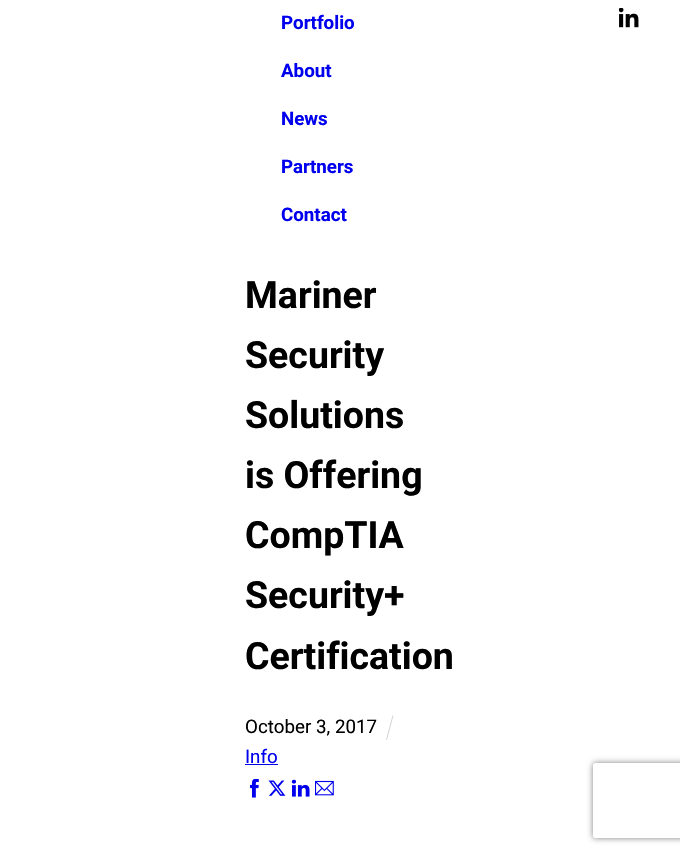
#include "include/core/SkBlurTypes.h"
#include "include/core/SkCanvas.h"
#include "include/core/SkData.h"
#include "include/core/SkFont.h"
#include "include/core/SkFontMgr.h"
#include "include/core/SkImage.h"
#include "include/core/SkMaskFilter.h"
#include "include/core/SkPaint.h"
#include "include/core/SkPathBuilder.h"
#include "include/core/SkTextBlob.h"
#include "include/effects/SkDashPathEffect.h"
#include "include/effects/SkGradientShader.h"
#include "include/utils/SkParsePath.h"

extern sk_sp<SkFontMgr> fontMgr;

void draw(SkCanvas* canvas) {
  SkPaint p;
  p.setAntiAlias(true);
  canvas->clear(SK_ColorWHITE);
  canvas->drawImageRect(SkImages::DeferredFromEncodedData(SkData::MakeFromFileName("images/1.png")), SkRect::MakeLTRB(619, 8, 639, 28), SkSamplingOptions());
  p.setColor(SkColorSetRGB(211, 211, 211));
  canvas->drawPath(SkPathBuilder().moveTo(392.5f, 715.5f).lineTo(393.5f, 715.5f).lineTo(387, 740).lineTo(386, 740).close().detach(), p);
  p.setColor(SkColorSetRGB(0, 0, 238));
  canvas->drawRect(SkRect::MakeLTRB(245, 764, 278, 765), p);
  canvas->drawImageRect(SkImages::DeferredFromEncodedData(SkData::MakeFromFileName("images/2.png")), SkRect::MakeLTRB(250, 779, 259, 798), SkSamplingOptions());
  canvas->drawImageRect(SkImages::DeferredFromEncodedData(SkData::MakeFromFileName("images/3.png")), SkRect::MakeLTRB(268, 780, 286, 796), SkSamplingOptions());
  canvas->drawImageRect(SkImages::DeferredFromEncodedData(SkData::MakeFromFileName("images/4.png")), SkRect::MakeLTRB(291, 779, 310, 797), SkSamplingOptions());
  canvas->drawImageRect(SkImages::DeferredFromEncodedData(SkData::MakeFromFileName("images/5.png")), SkRect::MakeLTRB(315, 780, 334, 796), SkSamplingOptions());
  canvas->save();
  canvas->clipPath(SkPathBuilder(SkPathFillType::kEvenOdd).moveTo(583, 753).lineTo(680, 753).lineTo(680, 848).lineTo(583, 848).close().moveTo(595.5f, 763).lineTo(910.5f, 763).cubicTo(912, 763, 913, 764, 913, 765.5f).lineTo(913, 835.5f).cubicTo(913, 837, 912, 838, 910.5f, 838).lineTo(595.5f, 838).cubicTo(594, 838, 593, 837, 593, 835.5f).lineTo(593, 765.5f).cubicTo(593, 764, 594, 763, 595.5f, 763).close().detach(), true);
  p.setColor(SkColorSetRGB(128, 128, 128));
  p.setMaskFilter(SkMaskFilter::MakeBlur(kNormal_SkBlurStyle, 3));
  canvas->drawRoundRect(SkRect::MakeLTRB(593, 763, 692, 838), 2.5f, 2.5f, p);
  p.setMaskFilter(nullptr);
  canvas->restore();
  SkFont font1(fontMgr->matchFamilyStyle("Roboto", SkFontStyle::Bold()), 18.75f);
  font1.setSubpixel(true);
  p.setColor(SkColorSetRGB(0, 0, 238));
  canvas->drawString("Portfolio", 281, 29, font1, p);
  canvas->drawString("About", 281, 77, font1, p);
  canvas->drawString("News", 281, 125, font1, p);
  canvas->drawString("Partners", 281, 173, font1, p);
  canvas->drawString("Contact", 281, 221, font1, p);
  SkFont font2(fontMgr->matchFamilyStyle("Roboto", SkFontStyle::Bold()), 37.5f);
  font2.setSubpixel(true);
  p.setColor(SK_ColorBLACK);
  canvas->drawString("Mariner", 245, 308, font2, p);
  canvas->drawString("Security", 245, 368, font2, p);
  canvas->drawString("Solutions", 245, 428, font2, p);
  canvas->drawString("is Offering", 245, 488, font2, p);
  canvas->drawString("CompTIA", 245, 548, font2, p);
  canvas->drawString("Security+", 245, 608, font2, p);
  canvas->drawString("Certification", 245, 669, font2, p);
  SkFont font3(fontMgr->matchFamilyStyle("Roboto", SkFontStyle::Normal()), 18.75f);
  font3.setSubpixel(true);
  canvas->drawString("October 3, 2017", 245, 733, font3, p);
  p.setColor(SkColorSetRGB(0, 0, 238));
  canvas->drawString("Info", 245, 763, font3, p);
}
